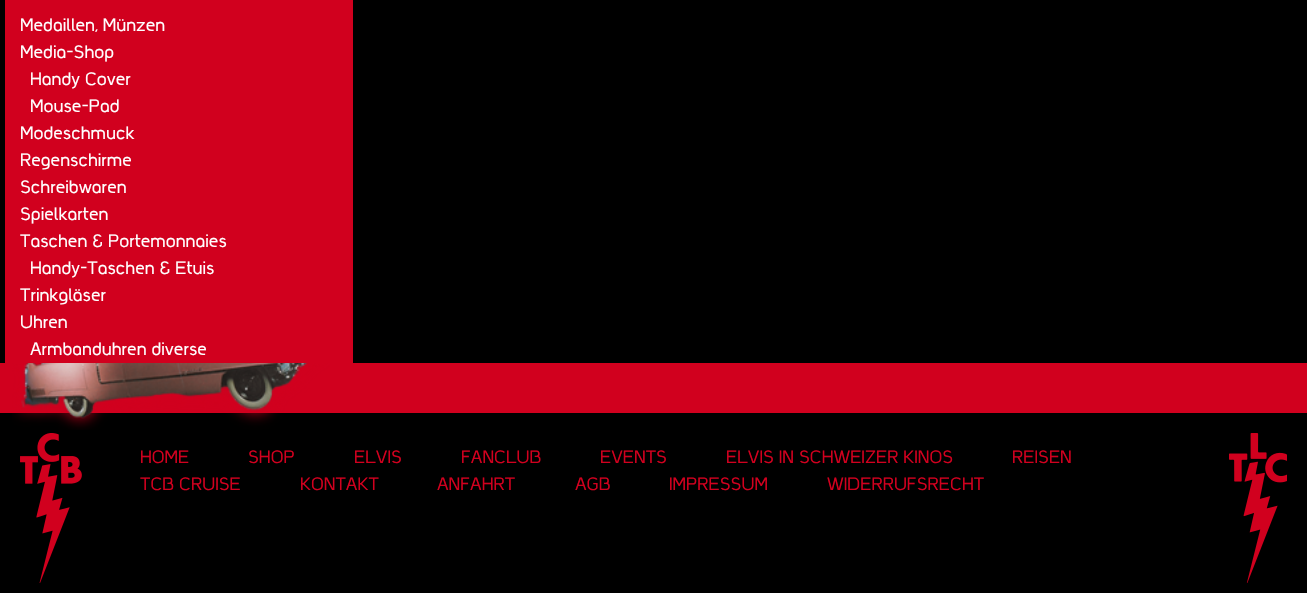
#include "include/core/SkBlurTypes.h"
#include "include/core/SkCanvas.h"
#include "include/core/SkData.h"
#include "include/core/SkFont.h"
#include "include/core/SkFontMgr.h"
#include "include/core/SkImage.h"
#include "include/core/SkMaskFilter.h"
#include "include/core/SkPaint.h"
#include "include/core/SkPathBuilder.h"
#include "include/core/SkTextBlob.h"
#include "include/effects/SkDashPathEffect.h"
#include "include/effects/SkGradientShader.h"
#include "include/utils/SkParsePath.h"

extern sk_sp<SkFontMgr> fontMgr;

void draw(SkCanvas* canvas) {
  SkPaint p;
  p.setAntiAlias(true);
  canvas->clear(SK_ColorBLACK);
  p.setColor(SkColorSetRGB(209, 0, 30));
  canvas->drawRect(SkRect::MakeLTRB(5, 0, 353, 363), p);
  canvas->drawRect(SkRect::MakeLTRB(0, 363, 1307, 413), p);
  canvas->drawImageRect(SkImages::DeferredFromEncodedData(SkData::MakeFromFileName("images/1.png")), SkRect::MakeLTRB(12, 363, 330, 430), SkSamplingOptions());
  canvas->drawImageRect(SkImages::DeferredFromEncodedData(SkData::MakeFromFileName("images/2.png")), SkRect::MakeLTRB(20, 433, 82, 583), SkSamplingOptions());
  canvas->drawImageRect(SkImages::DeferredFromEncodedData(SkData::MakeFromFileName("images/3.png")), SkRect::MakeLTRB(1229, 433, 1287, 583), SkSamplingOptions());
  SkFont font1(fontMgr->matchFamilyStyle("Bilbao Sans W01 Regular", SkFontStyle::Normal()), 18);
  font1.setSubpixel(true);
  p.setColor(SK_ColorWHITE);
  canvas->drawString("Medaillen, Münzen", 20, 31, font1, p);
  canvas->drawString("Media-Shop", 20, 58, font1, p);
  canvas->drawString("Handy Cover", 30, 85, font1, p);
  canvas->drawString("Mouse-Pad", 30, 112, font1, p);
  canvas->drawString("Modeschmuck", 20, 139, font1, p);
  canvas->drawString("Regenschirme", 20, 166, font1, p);
  canvas->drawString("Schreibwaren", 20, 193, font1, p);
  canvas->drawString("Spielkarten", 20, 220, font1, p);
  canvas->drawString("Taschen & Portemonnaies", 20, 247, font1, p);
  canvas->drawString("Handy-Taschen & Etuis", 30, 274, font1, p);
  canvas->drawString("Trinkgläser", 20, 301, font1, p);
  canvas->drawString("Uhren", 20, 328, font1, p);
  canvas->drawString("Armbanduhren diverse", 30, 355, font1, p);
  p.setColor(SkColorSetRGB(209, 0, 30));
  canvas->drawString("HOME", 140, 463, font1, p);
  canvas->drawString("SHOP", 248, 463, font1, p);
  canvas->drawString("ELVIS", 354, 463, font1, p);
  canvas->drawString("FANCLUB", 461, 463, font1, p);
  canvas->drawString("EVENTS", 600, 463, font1, p);
  canvas->drawString("ELVIS IN SCHWEIZER KINOS", 726, 463, font1, p);
  canvas->drawString("REISEN", 1012, 463, font1, p);
  canvas->drawString("TCB CRUISE", 140, 490, font1, p);
  canvas->drawString("KONTAKT", 300, 490, font1, p);
  canvas->drawString("ANFAHRT", 437, 490, font1, p);
  canvas->drawString("AGB", 575, 490, font1, p);
  canvas->drawString("IMPRESSUM", 669, 490, font1, p);
  canvas->drawString("WIDERRUFSRECHT", 827, 490, font1, p);
}
